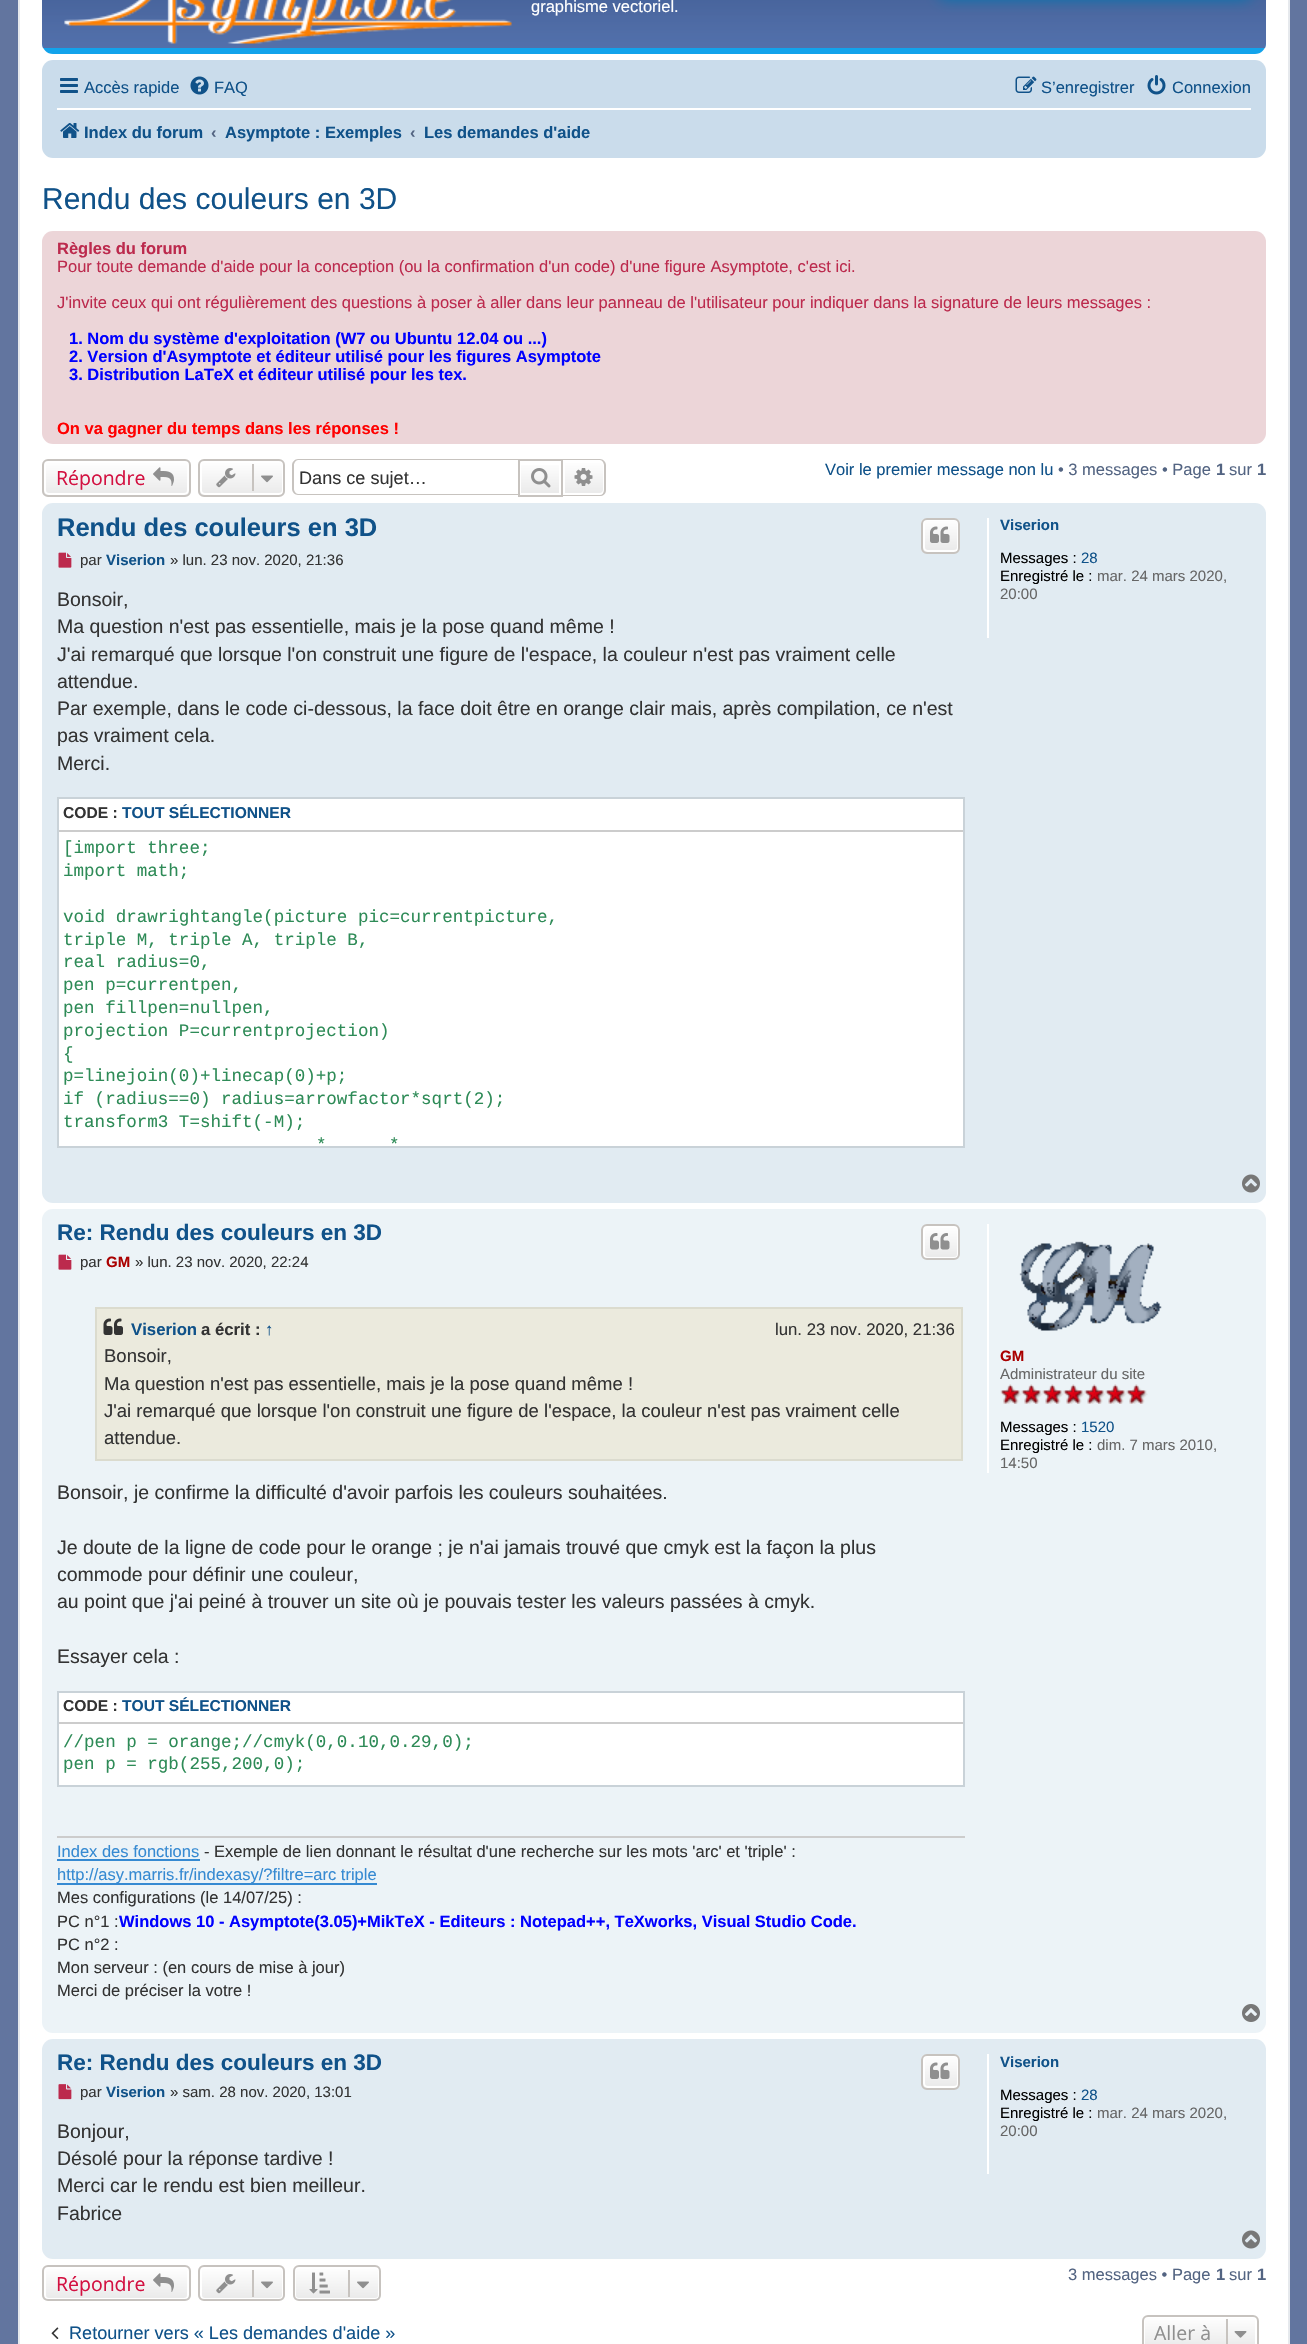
#include "include/core/SkBlurTypes.h"
#include "include/core/SkCanvas.h"
#include "include/core/SkData.h"
#include "include/core/SkFont.h"
#include "include/core/SkFontMgr.h"
#include "include/core/SkImage.h"
#include "include/core/SkMaskFilter.h"
#include "include/core/SkPaint.h"
#include "include/core/SkPathBuilder.h"
#include "include/core/SkTextBlob.h"
#include "include/effects/SkDashPathEffect.h"
#include "include/effects/SkGradientShader.h"
#include "include/utils/SkParsePath.h"

extern sk_sp<SkFontMgr> fontMgr;

void draw(SkCanvas* canvas) {
  SkPaint p;
  p.setAntiAlias(true);
  canvas->clear(SkColorSetRGB(98, 117, 159));
  p.setColor(SK_ColorWHITE);
  canvas->drawRect(SkRect::MakeLTRB(19, -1, 1289, 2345), p);
  p.setStyle(SkPaint::kStroke_Style);
  p.setStrokeWidth(2);
  p.setColor(SkColorSetRGB(230, 233, 237));
  canvas->drawRect(SkRect::MakeLTRB(19, -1, 1289, 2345), p);
  p.setStyle(SkPaint::kFill_Style);
  p.setColor(SkColorSetRGB(18, 163, 235));
  canvas->drawRoundRect(SkRect::MakeLTRB(42, -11, 1266, 54), 11, 11, p);
  canvas->drawImageRect(SkImages::DeferredFromEncodedData(SkData::MakeFromFileName("images/1.png")), SkRect::MakeLTRB(42, 0, 1266, 48), SkSamplingOptions());
  canvas->drawImageRect(SkImages::DeferredFromEncodedData(SkData::MakeFromFileName("images/2.png")), SkRect::MakeLTRB(64, 0, 512, 44), SkSamplingOptions());
  p.setColor(SkColorSetRGB(0, 117, 176));
  p.setMaskFilter(SkMaskFilter::MakeBlur(kNormal_SkBlurStyle, 7.5f));
  canvas->drawRoundRect(SkRect::MakeLTRB(939, -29, 1251, -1), 6, 6, p);
  p.setMaskFilter(nullptr);
  p.setColor(SkColorSetRGB(202, 220, 235));
  canvas->drawRoundRect(SkRect::MakeLTRB(42, 60, 1266, 158), 11, 11, p);
  canvas->drawImageRect(SkImages::DeferredFromEncodedData(SkData::MakeFromFileName("images/3.png")), SkRect::MakeLTRB(60, 78, 78, 93), SkSamplingOptions());
  canvas->drawImageRect(SkImages::DeferredFromEncodedData(SkData::MakeFromFileName("images/4.png")), SkRect::MakeLTRB(190, 76, 209, 95), SkSamplingOptions());
  canvas->drawImageRect(SkImages::DeferredFromEncodedData(SkData::MakeFromFileName("images/5.png")), SkRect::MakeLTRB(1015, 76, 1037, 93), SkSamplingOptions());
  canvas->drawImageRect(SkImages::DeferredFromEncodedData(SkData::MakeFromFileName("images/6.png")), SkRect::MakeLTRB(1147, 75, 1166, 95), SkSamplingOptions());
  p.setColor(SK_ColorWHITE);
  canvas->drawRect(SkRect::MakeLTRB(57, 108, 1251, 110), p);
  canvas->drawImageRect(SkImages::DeferredFromEncodedData(SkData::MakeFromFileName("images/7.png")), SkRect::MakeLTRB(60, 123, 80, 138), SkSamplingOptions());
  p.setColor(SkColorSetRGB(236, 213, 216));
  canvas->drawRoundRect(SkRect::MakeLTRB(42, 231, 1266, 444), 11, 11, p);
  canvas->save();
  canvas->clipPath(SkPathBuilder().moveTo(48, 459).lineTo(185, 459).cubicTo(188.5f, 459, 191, 461.5f, 191, 465).lineTo(191, 491).cubicTo(191, 494.5f, 188.5f, 497, 185, 497).lineTo(48, 497).cubicTo(44.5f, 497, 42, 494.5f, 42, 491).lineTo(42, 465).cubicTo(42, 461.5f, 44.5f, 459, 48, 459).close().detach(), true);
  {
    const SkColor colors[] = {SK_ColorWHITE, SkColorSetRGB(233, 233, 233)};
    const float stops[] = {0, 1};
    const SkPoint ends[] = {{116, 461}, {116, 495}};
    p.setShader(SkGradientShader::MakeLinear(ends, colors, stops, 2, SkTileMode::kClamp));
    p.setAlpha(255);
  }
  canvas->drawRect(SkRect::MakeLTRB(42, 461, 191, 495), p);
  canvas->restore();
  p.setStyle(SkPaint::kStroke_Style);
  p.setShader(nullptr);
  p.setColor(SK_ColorWHITE);
  canvas->drawRoundRect(SkRect::MakeLTRB(45, 462, 188, 494), 4, 4, p);
  p.setColor(SkColorSetRGB(199, 195, 191));
  canvas->drawRoundRect(SkRect::MakeLTRB(43, 460, 190, 496), 5, 5, p);
  canvas->drawImageRect(SkImages::DeferredFromEncodedData(SkData::MakeFromFileName("images/8.png")), SkRect::MakeLTRB(153, 467, 174, 486), SkSamplingOptions());
  canvas->save();
  canvas->clipPath(SkPathBuilder().moveTo(204, 459).lineTo(279, 459).cubicTo(282.5f, 459, 285, 461.5f, 285, 465).lineTo(285, 491).cubicTo(285, 494.5f, 282.5f, 497, 279, 497).lineTo(204, 497).cubicTo(200.5f, 497, 198, 494.5f, 198, 491).lineTo(198, 465).cubicTo(198, 461.5f, 200.5f, 459, 204, 459).close().detach(), true);
  p.setStyle(SkPaint::kFill_Style);
  {
    const SkColor colors[] = {SK_ColorWHITE, SkColorSetRGB(233, 233, 233)};
    const float stops[] = {0, 1};
    const SkPoint ends[] = {{242, 461}, {242, 495}};
    p.setShader(SkGradientShader::MakeLinear(ends, colors, stops, 2, SkTileMode::kClamp));
    p.setAlpha(255);
  }
  canvas->drawRect(SkRect::MakeLTRB(198, 461, 285, 495), p);
  canvas->restore();
  p.setStyle(SkPaint::kStroke_Style);
  p.setShader(nullptr);
  p.setColor(SK_ColorWHITE);
  canvas->drawRoundRect(SkRect::MakeLTRB(201, 462, 283, 494), 4, 4, p);
  p.setColor(SkColorSetRGB(199, 195, 191));
  canvas->drawRoundRect(SkRect::MakeLTRB(199, 460, 284, 496), 5, 5, p);
  canvas->drawImageRect(SkImages::DeferredFromEncodedData(SkData::MakeFromFileName("images/9.png")), SkRect::MakeLTRB(216, 468, 236, 488), SkSamplingOptions());
  p.setStyle(SkPaint::kFill_Style);
  canvas->drawRect(SkRect::MakeLTRB(252, 464, 254, 491), p);
  canvas->drawImageRect(SkImages::DeferredFromEncodedData(SkData::MakeFromFileName("images/10.png")), SkRect::MakeLTRB(261, 475, 273, 483), SkSamplingOptions());
  canvas->drawPath(SkPathBuilder(SkPathFillType::kEvenOdd).moveTo(298, 459).lineTo(518, 459).lineTo(518, 495).lineTo(298, 495).cubicTo(295, 495, 292, 492, 292, 489).lineTo(292, 465).cubicTo(292, 462, 295, 459, 298, 459).close().moveTo(298, 460).lineTo(518, 460).lineTo(518, 494).lineTo(298, 494).cubicTo(296, 494, 294, 491, 294, 489).lineTo(294, 465).cubicTo(294, 463, 296, 460, 298, 460).close().detach(), p);
  {
    const SkColor colors[] = {SK_ColorWHITE, SkColorSetRGB(233, 233, 233)};
    const float stops[] = {0, 1};
    const SkPoint ends[] = {{540, 461}, {540, 495}};
    p.setShader(SkGradientShader::MakeLinear(ends, colors, stops, 2, SkTileMode::kClamp));
    p.setAlpha(255);
  }
  canvas->drawRect(SkRect::MakeLTRB(521, 465, 559, 493), p);
  p.setStyle(SkPaint::kStroke_Style);
  p.setShader(nullptr);
  p.setColor(SkColorSetRGB(199, 195, 191));
  canvas->drawRect(SkRect::MakeLTRB(519, 460, 562, 496), p);
  canvas->drawImageRect(SkImages::DeferredFromEncodedData(SkData::MakeFromFileName("images/11.png")), SkRect::MakeLTRB(531, 468, 551, 488), SkSamplingOptions());
  p.setStyle(SkPaint::kFill_Style);
  {
    const SkColor colors[] = {SK_ColorWHITE, SkColorSetRGB(233, 233, 233)};
    const float stops[] = {0, 1};
    const SkPoint ends[] = {{584, 461}, {584, 495}};
    p.setShader(SkGradientShader::MakeLinear(ends, colors, stops, 2, SkTileMode::kClamp));
    p.setAlpha(255);
  }
  canvas->drawPath(SkPathBuilder().moveTo(564, 462).lineTo(600, 462).cubicTo(602, 462, 604, 464, 604, 466).lineTo(604, 490).cubicTo(604, 492, 602, 494, 600, 494).lineTo(564, 494).close().detach(), p);
  p.setStyle(SkPaint::kStroke_Style);
  p.setShader(nullptr);
  p.setColor(SK_ColorWHITE);
  canvas->drawPath(SkPathBuilder().moveTo(564, 462).lineTo(600, 462).cubicTo(602, 462, 604, 464, 604, 466).lineTo(604, 490).cubicTo(604, 492, 602, 494, 600, 494).lineTo(564, 494).close().detach(), p);
  p.setStyle(SkPaint::kFill_Style);
  p.setColor(SkColorSetRGB(199, 195, 191));
  canvas->drawPath(SkPathBuilder(SkPathFillType::kEvenOdd).moveTo(562, 459).lineTo(600, 459).cubicTo(603, 459, 606, 462, 606, 465).lineTo(606, 490).cubicTo(606, 494, 603, 496, 600, 496).lineTo(562, 496).close().moveTo(562, 460).lineTo(600, 460).cubicTo(602, 460, 604, 463, 604, 465).lineTo(604, 490).cubicTo(604, 493, 602, 495, 600, 495).lineTo(562, 495).close().detach(), p);
  canvas->drawImageRect(SkImages::DeferredFromEncodedData(SkData::MakeFromFileName("images/12.png")), SkRect::MakeLTRB(574, 468, 593, 486), SkSamplingOptions());
  p.setColor(SkColorSetRGB(225, 235, 242));
  canvas->drawRoundRect(SkRect::MakeLTRB(42, 503, 1266, 1203), 11, 11, p);
  canvas->save();
  canvas->clipPath(SkPathBuilder().moveTo(927, 518).lineTo(954, 518).cubicTo(957.5f, 518, 960, 520.5f, 960, 524).lineTo(960, 548).cubicTo(960, 551.5f, 957.5f, 554, 954, 554).lineTo(927, 554).cubicTo(923.5f, 554, 921, 551.5f, 921, 548).lineTo(921, 524).cubicTo(921, 520.5f, 923.5f, 518, 927, 518).close().detach(), true);
  {
    const SkColor colors[] = {SK_ColorWHITE, SkColorSetRGB(233, 233, 233)};
    const float stops[] = {0, 1};
    const SkPoint ends[] = {{941, 519}, {941, 552}};
    p.setShader(SkGradientShader::MakeLinear(ends, colors, stops, 2, SkTileMode::kClamp));
    p.setAlpha(255);
  }
  canvas->drawRect(SkRect::MakeLTRB(921, 519, 960, 552), p);
  canvas->restore();
  p.setStyle(SkPaint::kStroke_Style);
  p.setShader(nullptr);
  p.setColor(SK_ColorWHITE);
  canvas->drawRoundRect(SkRect::MakeLTRB(924, 520, 958, 551), 4, 4, p);
  p.setColor(SkColorSetRGB(199, 195, 191));
  canvas->drawRoundRect(SkRect::MakeLTRB(922, 519, 959, 553), 5, 5, p);
  canvas->drawImageRect(SkImages::DeferredFromEncodedData(SkData::MakeFromFileName("images/13.png")), SkRect::MakeLTRB(930, 526, 950, 543), SkSamplingOptions());
  canvas->drawImageRect(SkImages::DeferredFromEncodedData(SkData::MakeFromFileName("images/14.png")), SkRect::MakeLTRB(58, 552, 72, 568), SkSamplingOptions());
  p.setStyle(SkPaint::kFill_Style);
  p.setColor(SK_ColorWHITE);
  canvas->drawRect(SkRect::MakeLTRB(58, 798, 964, 1147), p);
  p.setStyle(SkPaint::kStroke_Style);
  p.setColor(SkColorSetRGB(201, 210, 216));
  canvas->drawRect(SkRect::MakeLTRB(58, 798, 964, 1147), p);
  p.setStyle(SkPaint::kFill_Style);
  p.setColor(SkColorSetRGB(204, 204, 204));
  canvas->drawRect(SkRect::MakeLTRB(59, 830, 963, 832), p);
  p.setColor(SK_ColorWHITE);
  canvas->drawRect(SkRect::MakeLTRB(987, 518, 989, 638), p);
  canvas->drawImageRect(SkImages::DeferredFromEncodedData(SkData::MakeFromFileName("images/15.png")), SkRect::MakeLTRB(1242, 1174, 1260, 1193), SkSamplingOptions());
  p.setColor(SkColorSetRGB(236, 243, 247));
  canvas->drawRoundRect(SkRect::MakeLTRB(42, 1209, 1266, 2033), 11, 11, p);
  canvas->save();
  canvas->clipPath(SkPathBuilder().moveTo(927, 1224).lineTo(954, 1224).cubicTo(957.5f, 1224, 960, 1226.5f, 960, 1230).lineTo(960, 1254).cubicTo(960, 1257.5f, 957.5f, 1260, 954, 1260).lineTo(927, 1260).cubicTo(923.5f, 1260, 921, 1257.5f, 921, 1254).lineTo(921, 1230).cubicTo(921, 1226.5f, 923.5f, 1224, 927, 1224).close().detach(), true);
  {
    const SkColor colors[] = {SK_ColorWHITE, SkColorSetRGB(233, 233, 233)};
    const float stops[] = {0, 1};
    const SkPoint ends[] = {{941, 1226}, {941, 1259}};
    p.setShader(SkGradientShader::MakeLinear(ends, colors, stops, 2, SkTileMode::kClamp));
    p.setAlpha(255);
  }
  canvas->drawRect(SkRect::MakeLTRB(921, 1226, 960, 1259), p);
  canvas->restore();
  p.setStyle(SkPaint::kStroke_Style);
  p.setShader(nullptr);
  p.setColor(SK_ColorWHITE);
  canvas->drawRoundRect(SkRect::MakeLTRB(924, 1227, 958, 1258), 4, 4, p);
  p.setColor(SkColorSetRGB(199, 195, 191));
  canvas->drawRoundRect(SkRect::MakeLTRB(922, 1225, 959, 1259), 5, 5, p);
  canvas->drawImageRect(SkImages::DeferredFromEncodedData(SkData::MakeFromFileName("images/16.png")), SkRect::MakeLTRB(930, 1233, 950, 1250), SkSamplingOptions());
  canvas->drawImageRect(SkImages::DeferredFromEncodedData(SkData::MakeFromFileName("images/17.png")), SkRect::MakeLTRB(58, 1254, 72, 1270), SkSamplingOptions());
  p.setStyle(SkPaint::kFill_Style);
  p.setColor(SkColorSetRGB(235, 234, 221));
  canvas->drawRect(SkRect::MakeLTRB(96, 1308, 962, 1460), p);
  p.setStyle(SkPaint::kStroke_Style);
  p.setColor(SkColorSetRGB(219, 219, 206));
  canvas->drawRect(SkRect::MakeLTRB(96, 1308, 962, 1460), p);
  canvas->drawImageRect(SkImages::DeferredFromEncodedData(SkData::MakeFromFileName("images/18.png")), SkRect::MakeLTRB(103, 1318, 123, 1335), SkSamplingOptions());
  p.setStyle(SkPaint::kFill_Style);
  p.setColor(SK_ColorWHITE);
  canvas->drawRect(SkRect::MakeLTRB(58, 1692, 964, 1786), p);
  p.setStyle(SkPaint::kStroke_Style);
  p.setColor(SkColorSetRGB(201, 210, 216));
  canvas->drawRect(SkRect::MakeLTRB(58, 1692, 964, 1786), p);
  p.setStyle(SkPaint::kFill_Style);
  p.setColor(SkColorSetRGB(204, 204, 204));
  canvas->drawRect(SkRect::MakeLTRB(59, 1722, 963, 1724), p);
  canvas->drawRect(SkRect::MakeLTRB(57, 1836, 965, 1838), p);
  p.setColor(SkColorSetRGB(54, 138, 210));
  canvas->drawRect(SkRect::MakeLTRB(57, 1859, 200, 1861), p);
  canvas->drawRect(SkRect::MakeLTRB(57, 1883, 377, 1885), p);
  p.setColor(SK_ColorWHITE);
  canvas->drawRect(SkRect::MakeLTRB(987, 1224, 989, 1473), p);
  canvas->drawImageRect(SkImages::DeferredFromEncodedData(SkData::MakeFromFileName("images/19.png")), SkRect::MakeLTRB(1019, 1241, 1162, 1331), SkSamplingOptions());
  canvas->drawImageRect(SkImages::DeferredFromEncodedData(SkData::MakeFromFileName("images/20.png")), SkRect::MakeLTRB(1000, 1384, 1148, 1404), SkSamplingOptions());
  canvas->drawImageRect(SkImages::DeferredFromEncodedData(SkData::MakeFromFileName("images/21.png")), SkRect::MakeLTRB(1242, 2004, 1260, 2022), SkSamplingOptions());
  p.setColor(SkColorSetRGB(225, 235, 242));
  canvas->drawRoundRect(SkRect::MakeLTRB(42, 2039, 1266, 2259), 11, 11, p);
  canvas->save();
  canvas->clipPath(SkPathBuilder().moveTo(927, 2054).lineTo(954, 2054).cubicTo(957.5f, 2054, 960, 2056.5f, 960, 2060).lineTo(960, 2084).cubicTo(960, 2087.5f, 957.5f, 2090, 954, 2090).lineTo(927, 2090).cubicTo(923.5f, 2090, 921, 2087.5f, 921, 2084).lineTo(921, 2060).cubicTo(921, 2056.5f, 923.5f, 2054, 927, 2054).close().detach(), true);
  {
    const SkColor colors[] = {SK_ColorWHITE, SkColorSetRGB(233, 233, 233)};
    const float stops[] = {0, 1};
    const SkPoint ends[] = {{941, 2055}, {941, 2088}};
    p.setShader(SkGradientShader::MakeLinear(ends, colors, stops, 2, SkTileMode::kClamp));
    p.setAlpha(255);
  }
  canvas->drawRect(SkRect::MakeLTRB(921, 2055, 960, 2088), p);
  canvas->restore();
  p.setStyle(SkPaint::kStroke_Style);
  p.setShader(nullptr);
  p.setColor(SK_ColorWHITE);
  canvas->drawRoundRect(SkRect::MakeLTRB(924, 2056, 958, 2087), 4, 4, p);
  p.setColor(SkColorSetRGB(199, 195, 191));
  canvas->drawRoundRect(SkRect::MakeLTRB(922, 2055, 959, 2089), 5, 5, p);
  canvas->drawImageRect(SkImages::DeferredFromEncodedData(SkData::MakeFromFileName("images/13.png")), SkRect::MakeLTRB(930, 2062, 950, 2079), SkSamplingOptions());
  canvas->drawImageRect(SkImages::DeferredFromEncodedData(SkData::MakeFromFileName("images/22.png")), SkRect::MakeLTRB(58, 2084, 72, 2100), SkSamplingOptions());
  p.setStyle(SkPaint::kFill_Style);
  p.setColor(SK_ColorWHITE);
  canvas->drawRect(SkRect::MakeLTRB(987, 2054, 989, 2174), p);
  canvas->drawImageRect(SkImages::DeferredFromEncodedData(SkData::MakeFromFileName("images/15.png")), SkRect::MakeLTRB(1242, 2230, 1260, 2249), SkSamplingOptions());
  canvas->save();
  canvas->clipPath(SkPathBuilder().moveTo(48, 2265).lineTo(185, 2265).cubicTo(188.5f, 2265, 191, 2267.5f, 191, 2271).lineTo(191, 2295).cubicTo(191, 2298.5f, 188.5f, 2301, 185, 2301).lineTo(48, 2301).cubicTo(44.5f, 2301, 42, 2298.5f, 42, 2295).lineTo(42, 2271).cubicTo(42, 2267.5f, 44.5f, 2265, 48, 2265).close().detach(), true);
  {
    const SkColor colors[] = {SK_ColorWHITE, SkColorSetRGB(233, 233, 233)};
    const float stops[] = {0, 1};
    const SkPoint ends[] = {{116, 2267}, {116, 2300}};
    p.setShader(SkGradientShader::MakeLinear(ends, colors, stops, 2, SkTileMode::kClamp));
    p.setAlpha(255);
  }
  canvas->drawRect(SkRect::MakeLTRB(42, 2267, 191, 2300), p);
  canvas->restore();
  p.setStyle(SkPaint::kStroke_Style);
  p.setShader(nullptr);
  p.setColor(SK_ColorWHITE);
  canvas->drawRoundRect(SkRect::MakeLTRB(45, 2268, 188, 2299), 4, 4, p);
  p.setColor(SkColorSetRGB(199, 195, 191));
  canvas->drawRoundRect(SkRect::MakeLTRB(43, 2266, 190, 2300), 5, 5, p);
  canvas->drawImageRect(SkImages::DeferredFromEncodedData(SkData::MakeFromFileName("images/23.png")), SkRect::MakeLTRB(153, 2273, 174, 2292), SkSamplingOptions());
  canvas->save();
  canvas->clipPath(SkPathBuilder().moveTo(204, 2265).lineTo(279, 2265).cubicTo(282.5f, 2265, 285, 2267.5f, 285, 2271).lineTo(285, 2295).cubicTo(285, 2298.5f, 282.5f, 2301, 279, 2301).lineTo(204, 2301).cubicTo(200.5f, 2301, 198, 2298.5f, 198, 2295).lineTo(198, 2271).cubicTo(198, 2267.5f, 200.5f, 2265, 204, 2265).close().detach(), true);
  p.setStyle(SkPaint::kFill_Style);
  {
    const SkColor colors[] = {SK_ColorWHITE, SkColorSetRGB(233, 233, 233)};
    const float stops[] = {0, 1};
    const SkPoint ends[] = {{242, 2267}, {242, 2300}};
    p.setShader(SkGradientShader::MakeLinear(ends, colors, stops, 2, SkTileMode::kClamp));
    p.setAlpha(255);
  }
  canvas->drawRect(SkRect::MakeLTRB(198, 2267, 285, 2300), p);
  canvas->restore();
  p.setStyle(SkPaint::kStroke_Style);
  p.setShader(nullptr);
  p.setColor(SK_ColorWHITE);
  canvas->drawRoundRect(SkRect::MakeLTRB(201, 2268, 283, 2299), 4, 4, p);
  p.setColor(SkColorSetRGB(199, 195, 191));
  canvas->drawRoundRect(SkRect::MakeLTRB(199, 2266, 284, 2300), 5, 5, p);
  canvas->drawImageRect(SkImages::DeferredFromEncodedData(SkData::MakeFromFileName("images/24.png")), SkRect::MakeLTRB(216, 2274, 236, 2294), SkSamplingOptions());
  p.setStyle(SkPaint::kFill_Style);
  canvas->drawRect(SkRect::MakeLTRB(252, 2270, 254, 2297), p);
  canvas->drawImageRect(SkImages::DeferredFromEncodedData(SkData::MakeFromFileName("images/25.png")), SkRect::MakeLTRB(261, 2281, 273, 2289), SkSamplingOptions());
  canvas->save();
  canvas->clipPath(SkPathBuilder().moveTo(299, 2265).lineTo(375, 2265).cubicTo(378.5f, 2265, 381, 2267.5f, 381, 2271).lineTo(381, 2295).cubicTo(381, 2298.5f, 378.5f, 2301, 375, 2301).lineTo(299, 2301).cubicTo(295.5f, 2301, 293, 2298.5f, 293, 2295).lineTo(293, 2271).cubicTo(293, 2267.5f, 295.5f, 2265, 299, 2265).close().detach(), true);
  {
    const SkColor colors[] = {SK_ColorWHITE, SkColorSetRGB(233, 233, 233)};
    const float stops[] = {0, 1};
    const SkPoint ends[] = {{337, 2267}, {337, 2300}};
    p.setShader(SkGradientShader::MakeLinear(ends, colors, stops, 2, SkTileMode::kClamp));
    p.setAlpha(255);
  }
  canvas->drawRect(SkRect::MakeLTRB(293, 2267, 381, 2300), p);
  canvas->restore();
  p.setStyle(SkPaint::kStroke_Style);
  p.setShader(nullptr);
  p.setColor(SK_ColorWHITE);
  canvas->drawRoundRect(SkRect::MakeLTRB(295, 2268, 379, 2299), 4, 4, p);
  p.setColor(SkColorSetRGB(199, 195, 191));
  canvas->drawRoundRect(SkRect::MakeLTRB(294, 2266, 380, 2300), 5, 5, p);
  canvas->drawImageRect(SkImages::DeferredFromEncodedData(SkData::MakeFromFileName("images/26.png")), SkRect::MakeLTRB(309, 2272, 330, 2294), SkSamplingOptions());
  p.setStyle(SkPaint::kFill_Style);
  canvas->drawRect(SkRect::MakeLTRB(348, 2270, 350, 2297), p);
  canvas->drawImageRect(SkImages::DeferredFromEncodedData(SkData::MakeFromFileName("images/25.png")), SkRect::MakeLTRB(357, 2281, 369, 2289), SkSamplingOptions());
  canvas->drawImageRect(SkImages::DeferredFromEncodedData(SkData::MakeFromFileName("images/27.png")), SkRect::MakeLTRB(51, 2327, 59, 2339), SkSamplingOptions());
  canvas->save();
  canvas->clipPath(SkPathBuilder().moveTo(1148, 2315).lineTo(1253, 2315).cubicTo(1256.5f, 2315, 1259, 2317.5f, 1259, 2321).lineTo(1259, 2345).cubicTo(1259, 2348.5f, 1256.5f, 2351, 1253, 2351).lineTo(1148, 2351).cubicTo(1144.5f, 2351, 1142, 2348.5f, 1142, 2345).lineTo(1142, 2321).cubicTo(1142, 2317.5f, 1144.5f, 2315, 1148, 2315).close().detach(), true);
  {
    const SkColor colors[] = {SK_ColorWHITE, SkColorSetRGB(233, 233, 233)};
    const float stops[] = {0, 1};
    const SkPoint ends[] = {{1200, 2316}, {1200, 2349}};
    p.setShader(SkGradientShader::MakeLinear(ends, colors, stops, 2, SkTileMode::kClamp));
    p.setAlpha(255);
  }
  canvas->drawRect(SkRect::MakeLTRB(1142, 2316, 1259, 2344), p);
  canvas->restore();
  p.setStyle(SkPaint::kStroke_Style);
  p.setShader(nullptr);
  p.setColor(SK_ColorWHITE);
  canvas->drawRoundRect(SkRect::MakeLTRB(1144, 2317, 1256, 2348), 4, 4, p);
  p.setColor(SkColorSetRGB(199, 195, 191));
  canvas->drawRoundRect(SkRect::MakeLTRB(1143, 2316, 1258, 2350), 5, 5, p);
  p.setStyle(SkPaint::kFill_Style);
  canvas->drawRect(SkRect::MakeLTRB(1226, 2319, 1228, 2344), p);
  canvas->drawImageRect(SkImages::DeferredFromEncodedData(SkData::MakeFromFileName("images/28.png")), SkRect::MakeLTRB(1234, 2331, 1247, 2338), SkSamplingOptions());
  SkFont font1(fontMgr->matchFamilyStyle("Liberation Sans", SkFontStyle::Normal()), 16.5f);
  font1.setSubpixel(true);
  p.setColor(SK_ColorWHITE);
  canvas->drawString("graphisme vectoriel.", 531, 12, font1, p);
  p.setColor(SkColorSetRGB(16, 82, 137));
  canvas->drawString("Accès rapide", 84, 93, font1, p);
  canvas->drawString("FAQ", 214, 93, font1, p);
  canvas->drawString("S’enregistrer", 1041, 93, font1, p);
  canvas->drawString("Connexion", 1172, 93, font1, p);
  SkFont font2(fontMgr->matchFamilyStyle("Liberation Sans", SkFontStyle::Bold()), 16.5f);
  font2.setSubpixel(true);
  canvas->drawString("Index du forum", 84, 138, font2, p);
  p.setColor(SkColorSetRGB(83, 100, 130));
  canvas->drawString("‹", 211, 138, font2, p);
  p.setColor(SkColorSetRGB(16, 82, 137));
  canvas->drawString("Asymptote : Exemples", 225, 138, font2, p);
  p.setColor(SkColorSetRGB(83, 100, 130));
  canvas->drawString("‹", 410, 138, font2, p);
  p.setColor(SkColorSetRGB(16, 82, 137));
  canvas->drawString("Les demandes d'aide", 424, 138, font2, p);
  SkFont font3(fontMgr->matchFamilyStyle("Liberation Sans", SkFontStyle::Normal()), 30);
  font3.setSubpixel(true);
  canvas->drawString("Rendu des couleurs en 3D", 42, 209, font3, p);
  p.setColor(SkColorSetRGB(188, 42, 77));
  canvas->drawString("Règles du forum", 57, 254, font2, p);
  canvas->drawString("Pour toute demande d'aide pour la conception (ou la confirmation d'un code) d'une figure Asymptote, c'est ici.", 57, 272, font1, p);
  canvas->drawString("J'invite ceux qui ont régulièrement des questions à poser à aller dans leur panneau de l'utilisateur pour indiquer dans la signature de leurs messages :", 57, 308, font1, p);
  p.setColor(SkColorSetRGB(0, 0, 255));
  canvas->drawString("1. Nom du système d'exploitation (W7 ou Ubuntu 12.04 ou ...)", 69, 344, font2, p);
  canvas->drawString("2. Version d'Asymptote et éditeur utilisé pour les figures Asymptote", 69, 362, font2, p);
  canvas->drawString("3. Distribution LaTeX et éditeur utilisé pour les tex.", 69, 380, font2, p);
  p.setColor(SkColorSetRGB(255, 0, 0));
  canvas->drawString("On va gagner du temps dans les réponses !", 57, 434, font2, p);
  SkFont font4(fontMgr->matchFamilyStyle("Open Sans", SkFontStyle::Normal()), 19.5f);
  font4.setSubpixel(true);
  p.setColor(SkColorSetRGB(211, 17, 65));
  canvas->drawString("Répondre", 56, 485, font4, p);
  SkFont font5(fontMgr->matchFamilyStyle("Liberation Sans", SkFontStyle::Normal()), 18.1f);
  font5.setSubpixel(true);
  p.setColor(SkColorSetRGB(51, 51, 51));
  canvas->drawString("Dans ce sujet…", 299, 484, font5, p);
  p.setColor(SkColorSetRGB(16, 82, 137));
  canvas->drawString("Voir le premier message non lu", 825, 475, font1, p);
  p.setColor(SkColorSetRGB(83, 100, 130));
  canvas->drawString("• 3 messages • Page", 1058, 475, font1, p);
  canvas->drawString("1", 1216, 475, font2, p);
  canvas->drawString("sur", 1229, 475, font1, p);
  canvas->drawString("1", 1257, 475, font2, p);
  SkFont font6(fontMgr->matchFamilyStyle("Liberation Sans", SkFontStyle::Bold()), 25.5f);
  font6.setSubpixel(true);
  p.setColor(SkColorSetRGB(16, 82, 137));
  canvas->drawString("Rendu des couleurs en 3D", 57, 536, font6, p);
  SkFont font7(fontMgr->matchFamilyStyle("Liberation Sans", SkFontStyle::Normal()), 15);
  font7.setSubpixel(true);
  p.setColor(SkColorSetRGB(51, 51, 51));
  canvas->drawString("par", 80, 565, font7, p);
  SkFont font8(fontMgr->matchFamilyStyle("Liberation Sans", SkFontStyle::Bold()), 15);
  font8.setSubpixel(true);
  p.setColor(SkColorSetRGB(16, 82, 137));
  canvas->drawString("Viserion", 106, 565, font8, p);
  p.setColor(SkColorSetRGB(51, 51, 51));
  canvas->drawString("» lun. 23 nov. 2020, 21:36", 170, 565, font7, p);
  SkFont font9(fontMgr->matchFamilyStyle("Liberation Sans", SkFontStyle::Normal()), 19.5f);
  font9.setSubpixel(true);
  canvas->drawString("Bonsoir,", 57, 606, font9, p);
  canvas->drawString("Ma question n'est pas essentielle, mais je la pose quand même !", 57, 633, font9, p);
  canvas->drawString("J'ai remarqué que lorsque l'on construit une figure de l'espace, la couleur n'est pas vraiment celle", 57, 661, font9, p);
  canvas->drawString("attendue.", 57, 688, font9, p);
  canvas->drawString("Par exemple, dans le code ci-dessous, la face doit être en orange clair mais, après compilation, ce n'est", 57, 715, font9, p);
  canvas->drawString("pas vraiment cela.", 57, 742, font9, p);
  canvas->drawString("Merci.", 57, 770, font9, p);
  SkFont font10(fontMgr->matchFamilyStyle("Liberation Sans", SkFontStyle::Bold()), 15.6f);
  font10.setSubpixel(true);
  canvas->drawString("CODE :", 63, 818, font10, p);
  p.setColor(SkColorSetRGB(16, 82, 137));
  canvas->drawString("TOUT SÉLECTIONNER", 122, 818, font10, p);
  SkFont font11(fontMgr->matchFamilyStyle("Liberation Mono", SkFontStyle::Normal()), 17.55f);
  font11.setSubpixel(true);
  p.setColor(SkColorSetRGB(46, 139, 87));
  canvas->drawString("[import three;", 63, 853, font11, p);
  canvas->drawString("import math;", 63, 876, font11, p);
  canvas->drawString("void drawrightangle(picture pic=currentpicture,", 63, 922, font11, p);
  canvas->drawString("triple M, triple A, triple B,", 63, 945, font11, p);
  canvas->drawString("real radius=0,", 63, 967, font11, p);
  canvas->drawString("pen p=currentpen,", 63, 990, font11, p);
  canvas->drawString("pen fillpen=nullpen,", 63, 1013, font11, p);
  canvas->drawString("projection P=currentprojection)", 63, 1036, font11, p);
  canvas->drawString("{", 63, 1059, font11, p);
  canvas->drawString("p=linejoin(0)+linecap(0)+p;", 63, 1081, font11, p);
  canvas->drawString("if (radius==0) radius=arrowfactor*sqrt(2);", 63, 1104, font11, p);
  canvas->drawString("transform3 T=shift(-M);", 63, 1127, font11, p);
  canvas->drawString("*", 316, 1150, font11, p);
  canvas->drawString("*", 389, 1150, font11, p);
  p.setColor(SkColorSetRGB(16, 82, 137));
  canvas->drawString("Viserion", 1000, 530, font8, p);
  p.setColor(SK_ColorBLACK);
  canvas->drawString("Messages :", 1000, 563, font7, p);
  p.setColor(SkColorSetRGB(16, 82, 137));
  canvas->drawString("28", 1081, 563, font7, p);
  p.setColor(SK_ColorBLACK);
  canvas->drawString("Enregistré le :", 1000, 581, font7, p);
  p.setColor(SkColorSetRGB(102, 102, 102));
  canvas->drawString("mar. 24 mars 2020,", 1097, 581, font7, p);
  canvas->drawString("20:00", 1000, 599, font7, p);
  SkFont font12(fontMgr->matchFamilyStyle("Liberation Sans", SkFontStyle::Bold()), 22.5f);
  font12.setSubpixel(true);
  p.setColor(SkColorSetRGB(16, 82, 137));
  canvas->drawString("Re: Rendu des couleurs en 3D", 57, 1240, font12, p);
  p.setColor(SkColorSetRGB(51, 51, 51));
  canvas->drawString("par", 80, 1267, font7, p);
  p.setColor(SkColorSetRGB(170, 0, 0));
  canvas->drawString("GM", 106, 1267, font8, p);
  p.setColor(SkColorSetRGB(51, 51, 51));
  canvas->drawString("» lun. 23 nov. 2020, 22:24", 135, 1267, font7, p);
  SkFont font13(fontMgr->matchFamilyStyle("Liberation Sans", SkFontStyle::Bold()), 16.75f);
  font13.setSubpixel(true);
  p.setColor(SkColorSetRGB(16, 82, 137));
  canvas->drawString("Viserion", 131, 1335, font13, p);
  p.setColor(SkColorSetRGB(51, 51, 51));
  canvas->drawString("a écrit :", 201, 1335, font13, p);
  p.setColor(SkColorSetRGB(16, 82, 137));
  canvas->drawString("↑", 265, 1335, font13, p);
  SkFont font14(fontMgr->matchFamilyStyle("Liberation Sans", SkFontStyle::Normal()), 16.75f);
  font14.setSubpixel(true);
  p.setColor(SkColorSetRGB(51, 51, 51));
  canvas->drawString("lun. 23 nov. 2020, 21:36", 775, 1335, font14, p);
  SkFont font15(fontMgr->matchFamilyStyle("Liberation Sans", SkFontStyle::Normal()), 18.5f);
  font15.setSubpixel(true);
  canvas->drawString("Bonsoir,", 104, 1362, font15, p);
  canvas->drawString("Ma question n'est pas essentielle, mais je la pose quand même !", 104, 1390, font15, p);
  canvas->drawString("J'ai remarqué que lorsque l'on construit une figure de l'espace, la couleur n'est pas vraiment celle", 104, 1417, font15, p);
  canvas->drawString("attendue.", 104, 1444, font15, p);
  canvas->drawString("Bonsoir, je confirme la difficulté d'avoir parfois les couleurs souhaitées.", 57, 1499, font9, p);
  canvas->drawString("Je doute de la ligne de code pour le orange ; je n'ai jamais trouvé que cmyk est la façon la plus", 57, 1554, font9, p);
  canvas->drawString("commode pour définir une couleur,", 57, 1581, font9, p);
  canvas->drawString("au point que j'ai peiné à trouver un site où je pouvais tester les valeurs passées à cmyk.", 57, 1608, font9, p);
  canvas->drawString("Essayer cela :", 57, 1663, font9, p);
  canvas->drawString("CODE :", 63, 1711, font10, p);
  p.setColor(SkColorSetRGB(16, 82, 137));
  canvas->drawString("TOUT SÉLECTIONNER", 122, 1711, font10, p);
  p.setColor(SkColorSetRGB(46, 139, 87));
  canvas->drawString("//pen p = orange;//cmyk(0,0.10,0.29,0);", 63, 1747, font11, p);
  canvas->drawString("pen p = rgb(255,200,0);", 63, 1769, font11, p);
  p.setColor(SkColorSetRGB(54, 138, 210));
  canvas->drawString("Index des fonctions", 57, 1857, font1, p);
  p.setColor(SkColorSetRGB(51, 51, 51));
  canvas->drawString("- Exemple de lien donnant le résultat d'une recherche sur les mots 'arc' et 'triple' :", 204, 1857, font1, p);
  p.setColor(SkColorSetRGB(54, 138, 210));
  canvas->drawString("http://asy.marris.fr/indexasy/?filtre=arc triple", 57, 1880, font1, p);
  p.setColor(SkColorSetRGB(51, 51, 51));
  canvas->drawString("Mes configurations (le 14/07/25) :", 57, 1903, font1, p);
  canvas->drawString("PC n°1 :", 57, 1927, font1, p);
  p.setColor(SkColorSetRGB(0, 0, 255));
  canvas->drawString("Windows 10 - Asymptote(3.05)+MikTeX - Editeurs : Notepad++, TeXworks, Visual Studio Code.", 119, 1927, font2, p);
  p.setColor(SkColorSetRGB(51, 51, 51));
  canvas->drawString("PC n°2 :", 57, 1950, font1, p);
  canvas->drawString("Mon serveur : (en cours de mise à jour)", 57, 1973, font1, p);
  canvas->drawString("Merci de préciser la votre !", 57, 1996, font1, p);
  p.setColor(SkColorSetRGB(170, 0, 0));
  canvas->drawString("GM", 1000, 1361, font8, p);
  p.setColor(SkColorSetRGB(102, 102, 102));
  canvas->drawString("Administrateur du site", 1000, 1379, font7, p);
  p.setColor(SK_ColorBLACK);
  canvas->drawString("Messages :", 1000, 1432, font7, p);
  p.setColor(SkColorSetRGB(16, 82, 137));
  canvas->drawString("1520", 1081, 1432, font7, p);
  p.setColor(SK_ColorBLACK);
  canvas->drawString("Enregistré le :", 1000, 1450, font7, p);
  p.setColor(SkColorSetRGB(102, 102, 102));
  canvas->drawString("dim. 7 mars 2010,", 1097, 1450, font7, p);
  canvas->drawString("14:50", 1000, 1468, font7, p);
  p.setColor(SkColorSetRGB(16, 82, 137));
  canvas->drawString("Re: Rendu des couleurs en 3D", 57, 2070, font12, p);
  p.setColor(SkColorSetRGB(51, 51, 51));
  canvas->drawString("par", 80, 2097, font7, p);
  p.setColor(SkColorSetRGB(16, 82, 137));
  canvas->drawString("Viserion", 106, 2097, font8, p);
  p.setColor(SkColorSetRGB(51, 51, 51));
  canvas->drawString("» sam. 28 nov. 2020, 13:01", 170, 2097, font7, p);
  canvas->drawString("Bonjour,", 57, 2138, font9, p);
  canvas->drawString("Désolé pour la réponse tardive !", 57, 2165, font9, p);
  canvas->drawString("Merci car le rendu est bien meilleur.", 57, 2192, font9, p);
  canvas->drawString("Fabrice", 57, 2220, font9, p);
  p.setColor(SkColorSetRGB(16, 82, 137));
  canvas->drawString("Viserion", 1000, 2067, font8, p);
  p.setColor(SK_ColorBLACK);
  canvas->drawString("Messages :", 1000, 2100, font7, p);
  p.setColor(SkColorSetRGB(16, 82, 137));
  canvas->drawString("28", 1081, 2100, font7, p);
  p.setColor(SK_ColorBLACK);
  canvas->drawString("Enregistré le :", 1000, 2118, font7, p);
  p.setColor(SkColorSetRGB(102, 102, 102));
  canvas->drawString("mar. 24 mars 2020,", 1097, 2118, font7, p);
  canvas->drawString("20:00", 1000, 2136, font7, p);
  p.setColor(SkColorSetRGB(211, 17, 65));
  canvas->drawString("Répondre", 56, 2291, font4, p);
  p.setColor(SkColorSetRGB(83, 100, 130));
  canvas->drawString("3 messages • Page", 1068, 2280, font1, p);
  canvas->drawString("1", 1216, 2280, font2, p);
  canvas->drawString("sur", 1229, 2280, font1, p);
  canvas->drawString("1", 1257, 2280, font2, p);
  p.setColor(SkColorSetRGB(16, 82, 137));
  canvas->drawString("Retourner vers « Les demandes d'aide »", 69, 2339, font5, p);
  p.setColor(SkColorSetRGB(143, 143, 143));
  canvas->drawString("Aller à", 1154, 2340, font4, p);
}
